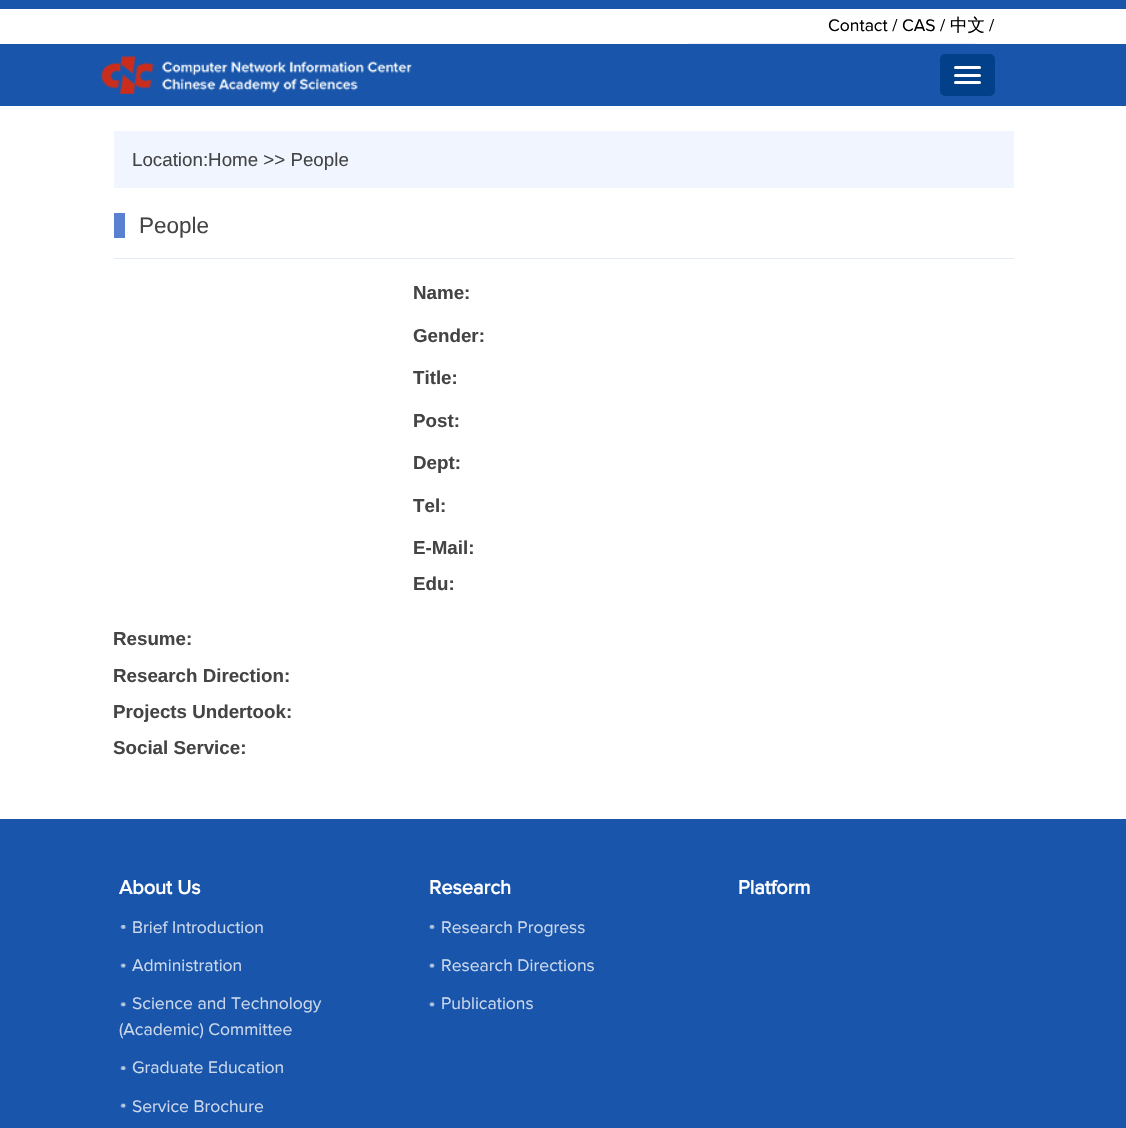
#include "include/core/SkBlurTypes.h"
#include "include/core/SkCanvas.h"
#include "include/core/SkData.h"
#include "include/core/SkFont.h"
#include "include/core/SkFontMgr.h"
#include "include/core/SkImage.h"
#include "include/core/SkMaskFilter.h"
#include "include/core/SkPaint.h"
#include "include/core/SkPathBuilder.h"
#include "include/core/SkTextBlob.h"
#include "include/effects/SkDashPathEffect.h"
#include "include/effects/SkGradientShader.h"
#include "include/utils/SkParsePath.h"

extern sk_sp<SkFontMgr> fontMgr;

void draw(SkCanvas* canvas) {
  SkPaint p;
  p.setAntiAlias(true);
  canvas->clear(SK_ColorWHITE);
  p.setColor(SkColorSetRGB(25, 86, 171));
  canvas->drawRect(SkRect::MakeLTRB(0, 0, 1126, 9), p);
  p.setColor(SkColorSetRGB(236, 240, 250));
  canvas->drawPath(SkPathBuilder().moveTo(692.5f, 43).lineTo(970.5f, 43).cubicTo(983.5f, 43, 994, 53.5f, 994, 66.5f).lineTo(994, 44).lineTo(669, 44).lineTo(669, 66.5f).cubicTo(669, 53.5f, 679.5f, 43, 692.5f, 43).close().detach(), p);
  p.setColor(SkColorSetRGB(25, 86, 171));
  canvas->drawRect(SkRect::MakeLTRB(0, 44, 1126, 106), p);
  canvas->drawImageRect(SkImages::DeferredFromEncodedData(SkData::MakeFromFileName("images/1.png")), SkRect::MakeLTRB(101, 56, 412, 94), SkSamplingOptions());
  p.setColor(SkColorSetRGB(2, 64, 137));
  canvas->drawRoundRect(SkRect::MakeLTRB(940, 54, 995, 96), 5, 5, p);
  p.setColor(SK_ColorWHITE);
  canvas->drawRoundRect(SkRect::MakeLTRB(954, 66, 981, 69), 1.5f, 1.5f, p);
  canvas->drawRoundRect(SkRect::MakeLTRB(954, 74, 981, 77), 1.5f, 1.5f, p);
  canvas->drawRoundRect(SkRect::MakeLTRB(954, 81, 981, 84), 1.5f, 1.5f, p);
  p.setColor(SkColorSetRGB(240, 245, 255));
  canvas->drawRect(SkRect::MakeLTRB(114, 131, 1014, 188), p);
  p.setColor(SkColorSetRGB(227, 236, 246));
  canvas->drawRect(SkRect::MakeLTRB(114, 258, 1014, 259), p);
  p.setColor(SkColorSetRGB(89, 128, 209));
  canvas->drawRect(SkRect::MakeLTRB(114, 213, 125, 238), p);
  p.setColor(SkColorSetRGB(25, 86, 171));
  canvas->drawRect(SkRect::MakeLTRB(0, 819, 1126, 1128), p);
  canvas->drawImageRect(SkImages::DeferredFromEncodedData(SkData::MakeFromFileName("images/2.png")), SkRect::MakeLTRB(120, 925, 127, 929), SkSamplingOptions());
  canvas->drawImageRect(SkImages::DeferredFromEncodedData(SkData::MakeFromFileName("images/3.png")), SkRect::MakeLTRB(120, 963, 127, 968), SkSamplingOptions());
  canvas->drawImageRect(SkImages::DeferredFromEncodedData(SkData::MakeFromFileName("images/4.png")), SkRect::MakeLTRB(120, 1002, 127, 1007), SkSamplingOptions());
  canvas->drawImageRect(SkImages::DeferredFromEncodedData(SkData::MakeFromFileName("images/5.png")), SkRect::MakeLTRB(120, 1066, 127, 1070), SkSamplingOptions());
  canvas->drawImageRect(SkImages::DeferredFromEncodedData(SkData::MakeFromFileName("images/3.png")), SkRect::MakeLTRB(120, 1103, 127, 1108), SkSamplingOptions());
  canvas->drawImageRect(SkImages::DeferredFromEncodedData(SkData::MakeFromFileName("images/6.png")), SkRect::MakeLTRB(428, 925, 435, 929), SkSamplingOptions());
  canvas->drawImageRect(SkImages::DeferredFromEncodedData(SkData::MakeFromFileName("images/7.png")), SkRect::MakeLTRB(428, 963, 435, 968), SkSamplingOptions());
  canvas->drawImageRect(SkImages::DeferredFromEncodedData(SkData::MakeFromFileName("images/8.png")), SkRect::MakeLTRB(428, 1002, 435, 1007), SkSamplingOptions());
  SkFont font1(fontMgr->matchFamilyStyle("Proxima Nova", SkFontStyle::Normal()), 17.5f);
  font1.setSubpixel(true);
  p.setColor(SK_ColorBLACK);
  canvas->drawString("Contact / CAS /", 828, 31, font1, p);
  SkFont font2(fontMgr->matchFamilyStyle("WenQuanYi Zen Hei", SkFontStyle(500, SkFontStyle::kNormal_Width, SkFontStyle::kUpright_Slant)), 17.5f);
  font2.setSubpixel(true);
  canvas->drawString("中文", 950, 31, font2, p);
  canvas->drawString("/", 989, 31, font1, p);
  SkFont font3(fontMgr->matchFamilyStyle("Liberation Sans", SkFontStyle::Normal()), 18.75f);
  font3.setSubpixel(true);
  p.setColor(SkColorSetRGB(68, 68, 68));
  canvas->drawString("Location:Home >> People", 132, 166, font3, p);
  SkFont font4(fontMgr->matchFamilyStyle("Liberation Sans", SkFontStyle::Normal()), 22.5f);
  font4.setSubpixel(true);
  canvas->drawString("People", 139, 233, font4, p);
  SkFont font5(fontMgr->matchFamilyStyle("Liberation Sans", SkFontStyle::Bold()), 18.75f);
  font5.setSubpixel(true);
  canvas->drawString("Name:", 413, 299, font5, p);
  canvas->drawString("Gender:", 413, 342, font5, p);
  canvas->drawString("Title:", 413, 384, font5, p);
  canvas->drawString("Post:", 413, 427, font5, p);
  canvas->drawString("Dept:", 413, 469, font5, p);
  canvas->drawString("Tel:", 413, 512, font5, p);
  canvas->drawString("E-Mail:", 413, 554, font5, p);
  canvas->drawString("Edu:", 413, 590, font5, p);
  canvas->drawString("Resume:", 113, 645, font5, p);
  canvas->drawString("Research Direction:", 113, 682, font5, p);
  canvas->drawString("Projects Undertook:", 113, 718, font5, p);
  canvas->drawString("Social Service:", 113, 754, font5, p);
  SkFont font6(fontMgr->matchFamilyStyle("Proxima Nova", SkFontStyle::Bold()), 20);
  font6.setSubpixel(true);
  p.setColor(SK_ColorWHITE);
  canvas->drawString("About Us", 119, 894, font6, p);
  p.setColor(SkColorSetRGB(204, 216, 236));
  canvas->drawString("Brief Introduction", 132, 933, font1, p);
  canvas->drawString("Administration", 132, 971, font1, p);
  canvas->drawString("Science and Technology", 132, 1009, font1, p);
  canvas->drawString("(Academic) Committee", 119, 1035, font1, p);
  canvas->drawString("Graduate Education", 132, 1073, font1, p);
  canvas->drawString("Service Brochure", 132, 1112, font1, p);
  p.setColor(SK_ColorWHITE);
  canvas->drawString("Research", 429, 894, font6, p);
  p.setColor(SkColorSetRGB(204, 216, 236));
  canvas->drawString("Research Progress", 441, 933, font1, p);
  canvas->drawString("Research Directions", 441, 971, font1, p);
  canvas->drawString("Publications", 441, 1009, font1, p);
  p.setColor(SK_ColorWHITE);
  canvas->drawString("Platform", 738, 894, font6, p);
}
